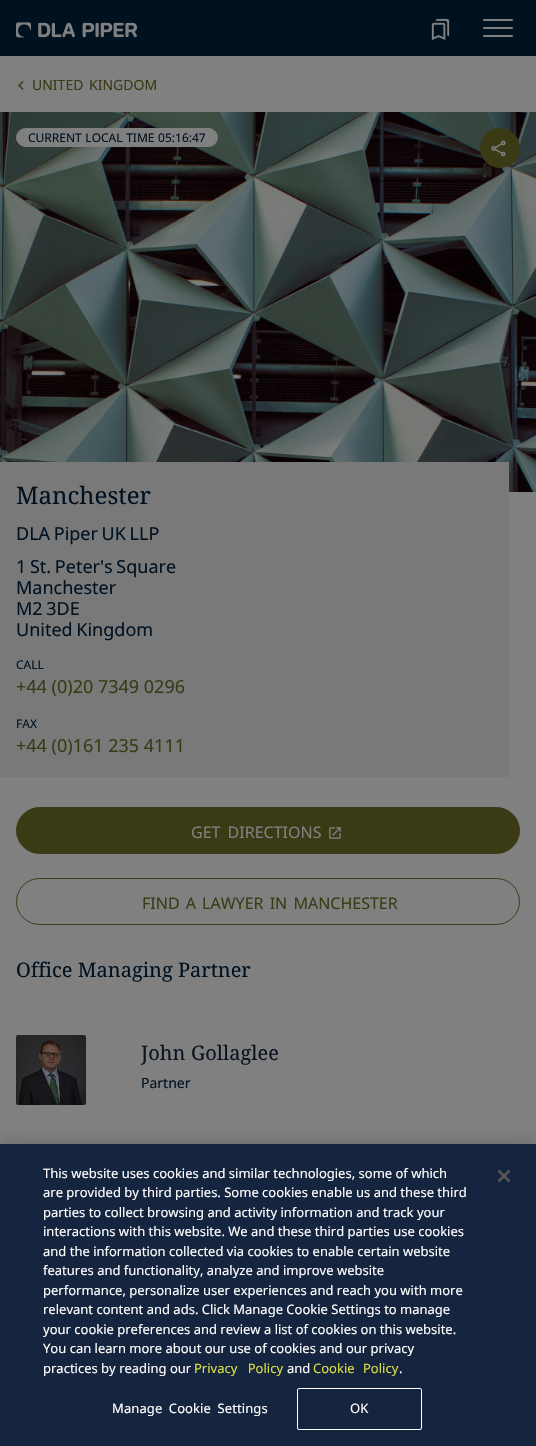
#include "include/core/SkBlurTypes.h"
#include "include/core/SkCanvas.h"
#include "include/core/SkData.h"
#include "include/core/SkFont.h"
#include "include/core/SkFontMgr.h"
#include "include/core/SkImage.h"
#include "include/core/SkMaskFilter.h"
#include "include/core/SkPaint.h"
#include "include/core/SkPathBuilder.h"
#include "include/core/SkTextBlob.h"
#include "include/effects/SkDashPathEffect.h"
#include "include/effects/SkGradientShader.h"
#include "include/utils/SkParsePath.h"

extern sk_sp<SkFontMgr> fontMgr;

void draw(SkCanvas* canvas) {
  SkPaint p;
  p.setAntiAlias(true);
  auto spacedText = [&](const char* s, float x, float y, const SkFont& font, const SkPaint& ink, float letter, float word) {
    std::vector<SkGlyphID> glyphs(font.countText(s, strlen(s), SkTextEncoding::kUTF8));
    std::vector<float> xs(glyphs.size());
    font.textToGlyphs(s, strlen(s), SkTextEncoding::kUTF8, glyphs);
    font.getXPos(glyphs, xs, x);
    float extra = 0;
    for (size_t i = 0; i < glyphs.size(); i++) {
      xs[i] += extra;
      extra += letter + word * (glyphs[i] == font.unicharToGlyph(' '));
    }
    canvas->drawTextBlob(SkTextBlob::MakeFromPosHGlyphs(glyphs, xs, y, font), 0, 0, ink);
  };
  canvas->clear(SkColorSetRGB(128, 128, 128));
  p.setColor(SkColorSetRGB(0, 17, 32));
  canvas->drawRect(SkRect::MakeLTRB(0, 0, 536, 56), p);
  canvas->drawImageRect(SkImages::DeferredFromEncodedData(SkData::MakeFromFileName("images/1.png")), SkRect::MakeLTRB(16, 22, 32, 38), SkSamplingOptions());
  canvas->drawImageRect(SkImages::DeferredFromEncodedData(SkData::MakeFromFileName("images/2.png")), SkRect::MakeLTRB(38, 22, 137, 38), SkSamplingOptions());
  canvas->drawImageRect(SkImages::DeferredFromEncodedData(SkData::MakeFromFileName("images/3.png")), SkRect::MakeLTRB(431, 18, 450, 40), SkSamplingOptions());
  p.setColor(SkColorSetRGB(128, 128, 128));
  canvas->drawRoundRect(SkRect::MakeLTRB(483, 19, 513, 21), 1, 1, p);
  canvas->drawRoundRect(SkRect::MakeLTRB(483, 27, 513, 29), 1, 1, p);
  canvas->drawRoundRect(SkRect::MakeLTRB(483, 35, 513, 37), 1, 1, p);
  canvas->drawImageRect(SkImages::DeferredFromEncodedData(SkData::MakeFromFileName("images/4.png")), SkRect::MakeLTRB(18, 81, 24, 90), SkSamplingOptions());
  canvas->drawImageRect(SkImages::DeferredFromEncodedData(SkData::MakeFromFileName("images/5.png")), SkRect::MakeLTRB(0, 112, 536, 492), SkSamplingOptions());
  canvas->drawRoundRect(SkRect::MakeLTRB(16.5f, 128.5f, 217.5f, 146.5f), 9, 9, p);
  p.setStyle(SkPaint::kStroke_Style);
  p.setStrokeWidth(1);
  canvas->drawRoundRect(SkRect::MakeLTRB(16.5f, 128.5f, 217.5f, 146.5f), 9, 9, p);
  p.setStyle(SkPaint::kFill_Style);
  p.setColor(SkColorSetRGB(58, 59, 20));
  canvas->drawCircle(500, 148, 19.5f, p);
  p.setStyle(SkPaint::kStroke_Style);
  canvas->drawCircle(500, 148, 19.5f, p);
  canvas->drawImageRect(SkImages::DeferredFromEncodedData(SkData::MakeFromFileName("images/6.png")), SkRect::MakeLTRB(491, 140, 506, 157), SkSamplingOptions());
  p.setStyle(SkPaint::kFill_Style);
  p.setColor(SkColorSetRGB(121, 121, 121));
  canvas->drawRect(SkRect::MakeLTRB(0, 462, 509, 777), p);
  p.setColor(SkColorSetRGB(58, 59, 20));
  canvas->drawRoundRect(SkRect::MakeLTRB(16.5f, 807.5f, 519.5f, 853.5f), 23, 23, p);
  p.setStyle(SkPaint::kStroke_Style);
  canvas->drawRoundRect(SkRect::MakeLTRB(16.5f, 807.5f, 519.5f, 853.5f), 23, 23, p);
  canvas->drawImageRect(SkImages::DeferredFromEncodedData(SkData::MakeFromFileName("images/7.png")), SkRect::MakeLTRB(329, 827, 341, 839), SkSamplingOptions());
  canvas->drawRoundRect(SkRect::MakeLTRB(16.5f, 878.5f, 519.5f, 924.5f), 23, 23, p);
  canvas->drawImageRect(SkImages::DeferredFromEncodedData(SkData::MakeFromFileName("images/8.png")), SkRect::MakeLTRB(16, 1035, 86, 1105), SkSamplingOptions());
  p.setStyle(SkPaint::kFill_Style);
  p.setColor(SkColorSetARGB(51, 0, 0, 0));
  p.setMaskFilter(SkMaskFilter::MakeBlur(kNormal_SkBlurStyle, 9));
  canvas->drawRect(SkRect::MakeLTRB(0, 1144, 536, 1446), p);
  p.setMaskFilter(nullptr);
  p.setColor(SkColorSetRGB(22, 37, 63));
  canvas->drawRect(SkRect::MakeLTRB(0, 1144, 536, 1446), p);
  p.setStyle(SkPaint::kStroke_Style);
  p.setColor(SK_ColorWHITE);
  canvas->drawRoundRect(SkRect::MakeLTRB(297.5f, 1388.5f, 421.5f, 1429.5f), 1.5f, 1.5f, p);
  canvas->drawImageRect(SkImages::DeferredFromEncodedData(SkData::MakeFromFileName("images/9.png")), SkRect::MakeLTRB(498, 1170, 510, 1182), SkSamplingOptions());
  SkFont font1(fontMgr->matchFamilyStyle("Noto Sans", SkFontStyle::Normal()), 14);
  font1.setSubpixel(true);
  p.setStyle(SkPaint::kFill_Style);
  p.setColor(SkColorSetRGB(58, 59, 20));
  spacedText("UNITED KINGDOM", 32, 90, font1, p, 0, 2);
  SkFont font2(fontMgr->matchFamilyStyle("Noto Sans", SkFontStyle::Normal()), 12);
  font2.setSubpixel(true);
  p.setColor(SkColorSetRGB(0, 17, 32));
  spacedText("CURRENT LOCAL TIME 05:16:47", 28, 142, font2, p, 0, 0.5f);
  SkFont font3(fontMgr->matchFamilyStyle("Noto Serif", SkFontStyle::Normal()), 24);
  font3.setSubpixel(true);
  canvas->drawString("Manchester", 16, 504, font3, p);
  SkFont font4(fontMgr->matchFamilyStyle("Noto Sans", SkFontStyle::Normal()), 18);
  font4.setSubpixel(true);
  spacedText("DLA Piper UK LLP", 16, 540, font4, p, 0, -1);
  spacedText("1 St. Peter's Square", 16, 573, font4, p, 0, -1);
  canvas->drawString("Manchester", 16, 594, font4, p);
  spacedText("M2 3DE", 16, 615, font4, p, 0, -1);
  spacedText("United Kingdom", 16, 636, font4, p, 0, -1);
  canvas->drawString("CALL", 16, 669, font2, p);
  p.setColor(SkColorSetRGB(58, 59, 20));
  canvas->drawString("+44 (0)20 7349 0296", 16, 693, font4, p);
  p.setColor(SkColorSetRGB(0, 17, 32));
  canvas->drawString("FAX", 16, 728, font2, p);
  p.setColor(SkColorSetRGB(58, 59, 20));
  canvas->drawString("+44 (0)161 235 4111", 16, 752, font4, p);
  SkFont font5(fontMgr->matchFamilyStyle("Noto Sans", SkFontStyle::Normal()), 16);
  font5.setSubpixel(true);
  p.setColor(SkColorSetRGB(128, 128, 128));
  spacedText("GET DIRECTIONS", 191, 838, font5, p, 0, 3);
  p.setColor(SkColorSetRGB(58, 59, 20));
  spacedText("FIND A LAWYER IN MANCHESTER", 142, 909, font5, p, 0, 2);
  SkFont font6(fontMgr->matchFamilyStyle("Noto Serif", SkFontStyle::Normal()), 20);
  font6.setSubpixel(true);
  p.setColor(SkColorSetRGB(0, 17, 32));
  canvas->drawString("Office Managing Partner", 16, 977, font6, p);
  p.setColor(SkColorSetRGB(11, 19, 32));
  canvas->drawString("John", 141, 1060, font6, p);
  canvas->drawString("Gollaglee", 191, 1060, font6, p);
  p.setColor(SkColorSetRGB(0, 17, 32));
  canvas->drawString("Partner", 141, 1088, font1, p);
  SkFont font7(fontMgr->matchFamilyStyle("Noto Sans", SkFontStyle::Normal()), 13);
  font7.setSubpixel(true);
  p.setColor(SK_ColorWHITE);
  canvas->drawString("This website uses cookies and similar technologies, some of which", 43, 1178, font7, p);
  canvas->drawString("are provided by third parties. Some cookies enable us and these third", 43, 1197, font7, p);
  canvas->drawString("parties to collect browsing and activity information and track your", 43, 1217, font7, p);
  canvas->drawString("interactions with this website. We and these third parties use cookies", 43, 1236, font7, p);
  canvas->drawString("and the information collected via cookies to enable certain website", 43, 1256, font7, p);
  canvas->drawString("features and functionality, analyze and improve website", 43, 1275, font7, p);
  canvas->drawString("performance, personalize user experiences and reach you with more", 43, 1295, font7, p);
  canvas->drawString("relevant content and ads. Click Manage Cookie Settings to manage", 43, 1314, font7, p);
  canvas->drawString("your cookie preferences and review a list of cookies on this website.", 43, 1334, font7, p);
  canvas->drawString("You can learn more about our use of cookies and our privacy", 43, 1353, font7, p);
  canvas->drawString("practices by reading our", 43, 1373, font7, p);
  p.setColor(SkColorSetRGB(217, 220, 66));
  spacedText("Privacy Policy", 194, 1373, font7, p, 0, 7);
  p.setColor(SK_ColorWHITE);
  canvas->drawString("and", 287, 1373, font7, p);
  p.setColor(SkColorSetRGB(217, 220, 66));
  spacedText("Cookie Policy", 313, 1373, font7, p, 0, 5);
  p.setColor(SK_ColorWHITE);
  canvas->drawString(".", 399, 1373, font7, p);
  spacedText("Manage Cookie Settings", 112, 1413, font7, p, 0.1f, 3);
  spacedText("OK", 350, 1413, font7, p, 0.1f, 0);
}
